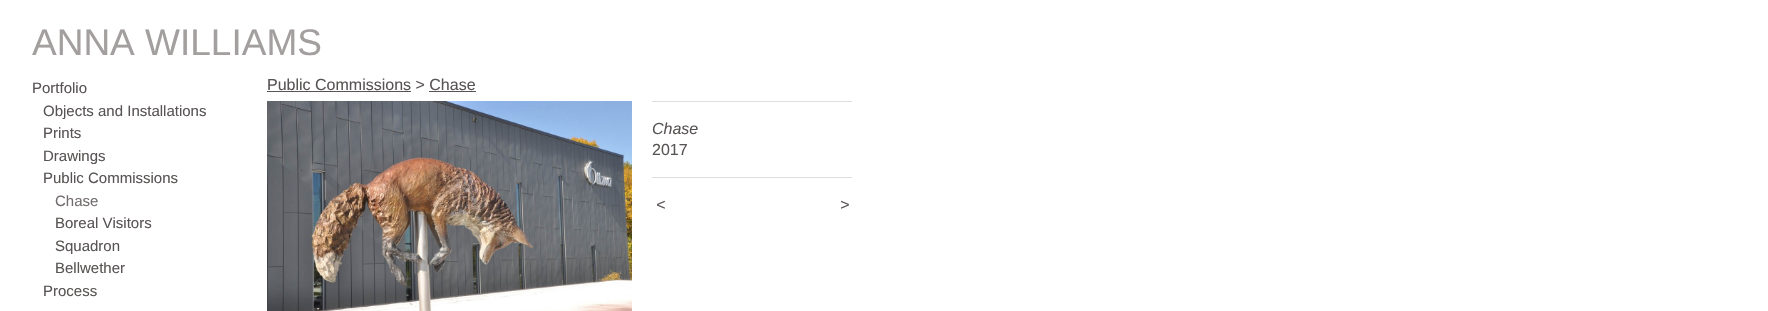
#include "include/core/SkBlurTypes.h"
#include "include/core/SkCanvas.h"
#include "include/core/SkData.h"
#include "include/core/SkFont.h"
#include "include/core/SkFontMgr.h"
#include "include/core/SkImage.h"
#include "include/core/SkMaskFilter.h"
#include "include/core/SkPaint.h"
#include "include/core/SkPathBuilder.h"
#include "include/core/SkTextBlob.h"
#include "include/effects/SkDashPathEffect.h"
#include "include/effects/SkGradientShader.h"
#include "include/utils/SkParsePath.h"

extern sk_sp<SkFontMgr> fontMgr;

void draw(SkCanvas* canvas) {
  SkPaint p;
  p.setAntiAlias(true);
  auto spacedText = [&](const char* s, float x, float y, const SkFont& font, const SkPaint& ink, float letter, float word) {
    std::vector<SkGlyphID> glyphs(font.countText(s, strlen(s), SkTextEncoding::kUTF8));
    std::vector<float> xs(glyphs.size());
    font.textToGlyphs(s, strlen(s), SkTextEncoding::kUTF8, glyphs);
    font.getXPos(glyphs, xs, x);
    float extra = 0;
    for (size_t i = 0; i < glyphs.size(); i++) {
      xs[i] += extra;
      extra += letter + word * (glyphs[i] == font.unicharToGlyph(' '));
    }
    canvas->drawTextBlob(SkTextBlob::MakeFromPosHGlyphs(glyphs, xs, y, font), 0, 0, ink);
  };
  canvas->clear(SK_ColorWHITE);
  p.setColor(SkColorSetRGB(89, 84, 84));
  canvas->drawRect(SkRect::MakeLTRB(267, 91, 411, 92), p);
  canvas->drawRect(SkRect::MakeLTRB(429, 91, 476, 92), p);
  canvas->drawImageRect(SkImages::DeferredFromEncodedData(SkData::MakeFromFileName("images/1.png")), SkRect::MakeLTRB(267, 101, 632, 311), SkSamplingOptions());
  p.setColor(SkColorSetRGB(222, 222, 222));
  canvas->drawRect(SkRect::MakeLTRB(652, 101, 852, 102), p);
  canvas->drawRect(SkRect::MakeLTRB(652, 177, 852, 178), p);
  SkFont font1(fontMgr->matchFamilyStyle("Liberation Sans", SkFontStyle::Normal()), 37);
  font1.setSubpixel(true);
  p.setColor(SkColorSetRGB(163, 159, 159));
  canvas->drawString("ANNA WILLIAMS", 32, 55, font1, p);
  SkFont font2(fontMgr->matchFamilyStyle("Liberation Sans", SkFontStyle::Normal()), 15);
  font2.setSubpixel(true);
  p.setColor(SkColorSetRGB(89, 84, 84));
  canvas->drawString("Portfolio", 32, 93, font2, p);
  canvas->drawString("Objects and Installations", 43, 116, font2, p);
  canvas->drawString("Prints", 43, 138, font2, p);
  canvas->drawString("Drawings", 43, 161, font2, p);
  canvas->drawString("Public Commissions", 43, 183, font2, p);
  p.setColor(SkColorSetRGB(115, 109, 109));
  canvas->drawString("Chase", 55, 206, font2, p);
  p.setColor(SkColorSetRGB(89, 84, 84));
  canvas->drawString("Boreal Visitors", 55, 228, font2, p);
  canvas->drawString("Squadron", 55, 251, font2, p);
  canvas->drawString("Bellwether", 55, 273, font2, p);
  canvas->drawString("Process", 43, 296, font2, p);
  SkFont font3(fontMgr->matchFamilyStyle("Liberation Sans", SkFontStyle::Normal()), 16);
  font3.setSubpixel(true);
  canvas->drawString("Public Commissions > Chase", 267, 90, font3, p);
  SkFont font4(fontMgr->matchFamilyStyle("Liberation Sans", SkFontStyle::Italic()), 16);
  font4.setSubpixel(true);
  canvas->drawString("Chase", 652, 134, font4, p);
  canvas->drawString("2017", 652, 155, font3, p);
  spacedText("<", 656, 210, font4, p, 1, 0);
  spacedText(">", 840, 210, font4, p, 1, 0);
}
